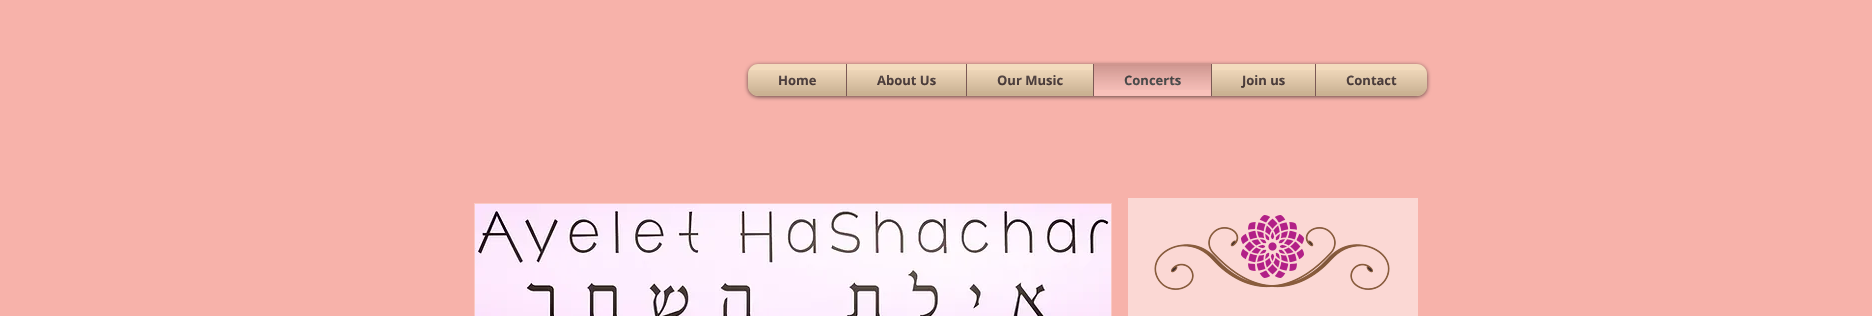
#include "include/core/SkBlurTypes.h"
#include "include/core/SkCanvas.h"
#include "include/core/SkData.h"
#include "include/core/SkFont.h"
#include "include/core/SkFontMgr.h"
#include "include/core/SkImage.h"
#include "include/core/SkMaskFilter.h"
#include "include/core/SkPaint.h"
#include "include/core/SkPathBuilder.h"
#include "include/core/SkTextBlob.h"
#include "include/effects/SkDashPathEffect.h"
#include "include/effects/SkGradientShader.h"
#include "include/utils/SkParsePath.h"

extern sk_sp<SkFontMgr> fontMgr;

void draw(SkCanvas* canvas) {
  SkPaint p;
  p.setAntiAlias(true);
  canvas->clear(SkColorSetRGB(247, 178, 170));
  p.setColor(SkColorSetARGB(153, 0, 0, 0));
  p.setMaskFilter(SkMaskFilter::MakeBlur(kNormal_SkBlurStyle, 2));
  canvas->drawRoundRect(SkRect::MakeLTRB(748, 65, 1427, 97), 10, 10, p);
  p.setMaskFilter(nullptr);
  canvas->drawImageRect(SkImages::DeferredFromEncodedData(SkData::MakeFromFileName("images/1.png")), SkRect::MakeLTRB(748, 64, 1427, 91), SkSamplingOptions());
  canvas->drawImageRect(SkImages::DeferredFromEncodedData(SkData::MakeFromFileName("images/2.png")), SkRect::MakeLTRB(748, 73, 1427, 96), SkSamplingOptions());
  p.setColor(SkColorSetRGB(241, 211, 174));
  canvas->drawPath(SkPathBuilder().moveTo(758, 64).lineTo(846, 64).lineTo(846, 96).lineTo(758, 96).cubicTo(752.5f, 96, 748, 91.5f, 748, 86).lineTo(748, 74).cubicTo(748, 68.5f, 752.5f, 64, 758, 64).close().detach(), p);
  canvas->drawRect(SkRect::MakeLTRB(847, 64, 966, 96), p);
  p.setColor(SkColorSetRGB(123, 89, 85));
  canvas->drawRect(SkRect::MakeLTRB(846, 64, 847, 96), p);
  p.setColor(SkColorSetRGB(241, 211, 174));
  canvas->drawRect(SkRect::MakeLTRB(967, 64, 1093, 96), p);
  p.setColor(SkColorSetRGB(123, 89, 85));
  canvas->drawRect(SkRect::MakeLTRB(966, 64, 967, 96), p);
  p.setColor(SkColorSetRGB(247, 178, 170));
  canvas->drawRect(SkRect::MakeLTRB(1094, 64, 1211, 96), p);
  p.setColor(SkColorSetRGB(123, 89, 85));
  canvas->drawRect(SkRect::MakeLTRB(1093, 64, 1094, 96), p);
  p.setColor(SkColorSetRGB(241, 211, 174));
  canvas->drawRect(SkRect::MakeLTRB(1212, 64, 1315, 96), p);
  p.setColor(SkColorSetRGB(123, 89, 85));
  canvas->drawRect(SkRect::MakeLTRB(1211, 64, 1212, 96), p);
  p.setColor(SkColorSetRGB(241, 211, 174));
  canvas->drawPath(SkPathBuilder().moveTo(1315, 64).lineTo(1417, 64).cubicTo(1422.5f, 64, 1427, 68.5f, 1427, 74).lineTo(1427, 86).cubicTo(1427, 91.5f, 1422.5f, 96, 1417, 96).lineTo(1315, 96).close().detach(), p);
  p.setColor(SkColorSetRGB(123, 89, 85));
  canvas->drawRect(SkRect::MakeLTRB(1315, 64, 1316, 96), p);
  p.setStyle(SkPaint::kStroke_Style);
  p.setStrokeWidth(1);
  p.setColor(SkColorSetRGB(250, 202, 197));
  canvas->drawRect(SkRect::MakeLTRB(474.5f, 203.5f, 1111.5f, 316.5f), p);
  canvas->drawImageRect(SkImages::DeferredFromEncodedData(SkData::MakeFromFileName("images/15.png")), SkRect::MakeLTRB(475, 204, 1111, 316), SkSamplingOptions());
  p.setStyle(SkPaint::kFill_Style);
  p.setColor(SkColorSetRGB(251, 216, 212));
  canvas->drawRect(SkRect::MakeLTRB(1128, 198, 1418, 316), p);
  canvas->drawImageRect(SkImages::DeferredFromEncodedData(SkData::MakeFromFileName("images/17.png")), SkRect::MakeLTRB(1154, 227, 1390, 290), SkSamplingOptions());
  canvas->drawImageRect(SkImages::DeferredFromEncodedData(SkData::MakeFromFileName("images/16.png")), SkRect::MakeLTRB(1241, 215, 1304, 278), SkSamplingOptions());
  SkFont font1(fontMgr->matchFamilyStyle("Open Sans", SkFontStyle::Bold()), 13);
  font1.setSubpixel(true);
  p.setColor(SkColorSetRGB(61, 44, 42));
  canvas->drawString("Home", 778, 85, font1, p);
  canvas->drawImageRect(SkImages::DeferredFromEncodedData(SkData::MakeFromFileName("images/3.png")), SkRect::MakeLTRB(748, 64, 846, 91), SkSamplingOptions());
  canvas->drawImageRect(SkImages::DeferredFromEncodedData(SkData::MakeFromFileName("images/4.png")), SkRect::MakeLTRB(748, 70, 846, 96), SkSamplingOptions());
  canvas->drawString("About Us", 877, 85, font1, p);
  canvas->drawImageRect(SkImages::DeferredFromEncodedData(SkData::MakeFromFileName("images/5.png")), SkRect::MakeLTRB(847, 64, 966, 91), SkSamplingOptions());
  canvas->drawImageRect(SkImages::DeferredFromEncodedData(SkData::MakeFromFileName("images/6.png")), SkRect::MakeLTRB(847, 70, 966, 96), SkSamplingOptions());
  canvas->drawString("Our Music", 997, 85, font1, p);
  canvas->drawImageRect(SkImages::DeferredFromEncodedData(SkData::MakeFromFileName("images/7.png")), SkRect::MakeLTRB(967, 64, 1093, 91), SkSamplingOptions());
  canvas->drawImageRect(SkImages::DeferredFromEncodedData(SkData::MakeFromFileName("images/8.png")), SkRect::MakeLTRB(967, 70, 1093, 96), SkSamplingOptions());
  p.setColor(SkColorSetRGB(50, 50, 50));
  canvas->drawString("Concerts", 1124, 85, font1, p);
  canvas->drawImageRect(SkImages::DeferredFromEncodedData(SkData::MakeFromFileName("images/9.png")), SkRect::MakeLTRB(1094, 64, 1211, 90), SkSamplingOptions());
  canvas->drawImageRect(SkImages::DeferredFromEncodedData(SkData::MakeFromFileName("images/10.png")), SkRect::MakeLTRB(1094, 66, 1211, 96), SkSamplingOptions());
  p.setColor(SkColorSetRGB(61, 44, 42));
  canvas->drawString("Join us", 1242, 85, font1, p);
  canvas->drawImageRect(SkImages::DeferredFromEncodedData(SkData::MakeFromFileName("images/11.png")), SkRect::MakeLTRB(1212, 64, 1315, 91), SkSamplingOptions());
  canvas->drawImageRect(SkImages::DeferredFromEncodedData(SkData::MakeFromFileName("images/12.png")), SkRect::MakeLTRB(1212, 70, 1315, 96), SkSamplingOptions());
  canvas->drawString("Contact", 1346, 85, font1, p);
  canvas->drawImageRect(SkImages::DeferredFromEncodedData(SkData::MakeFromFileName("images/13.png")), SkRect::MakeLTRB(1316, 64, 1427, 91), SkSamplingOptions());
  canvas->drawImageRect(SkImages::DeferredFromEncodedData(SkData::MakeFromFileName("images/14.png")), SkRect::MakeLTRB(1316, 70, 1427, 96), SkSamplingOptions());
}
